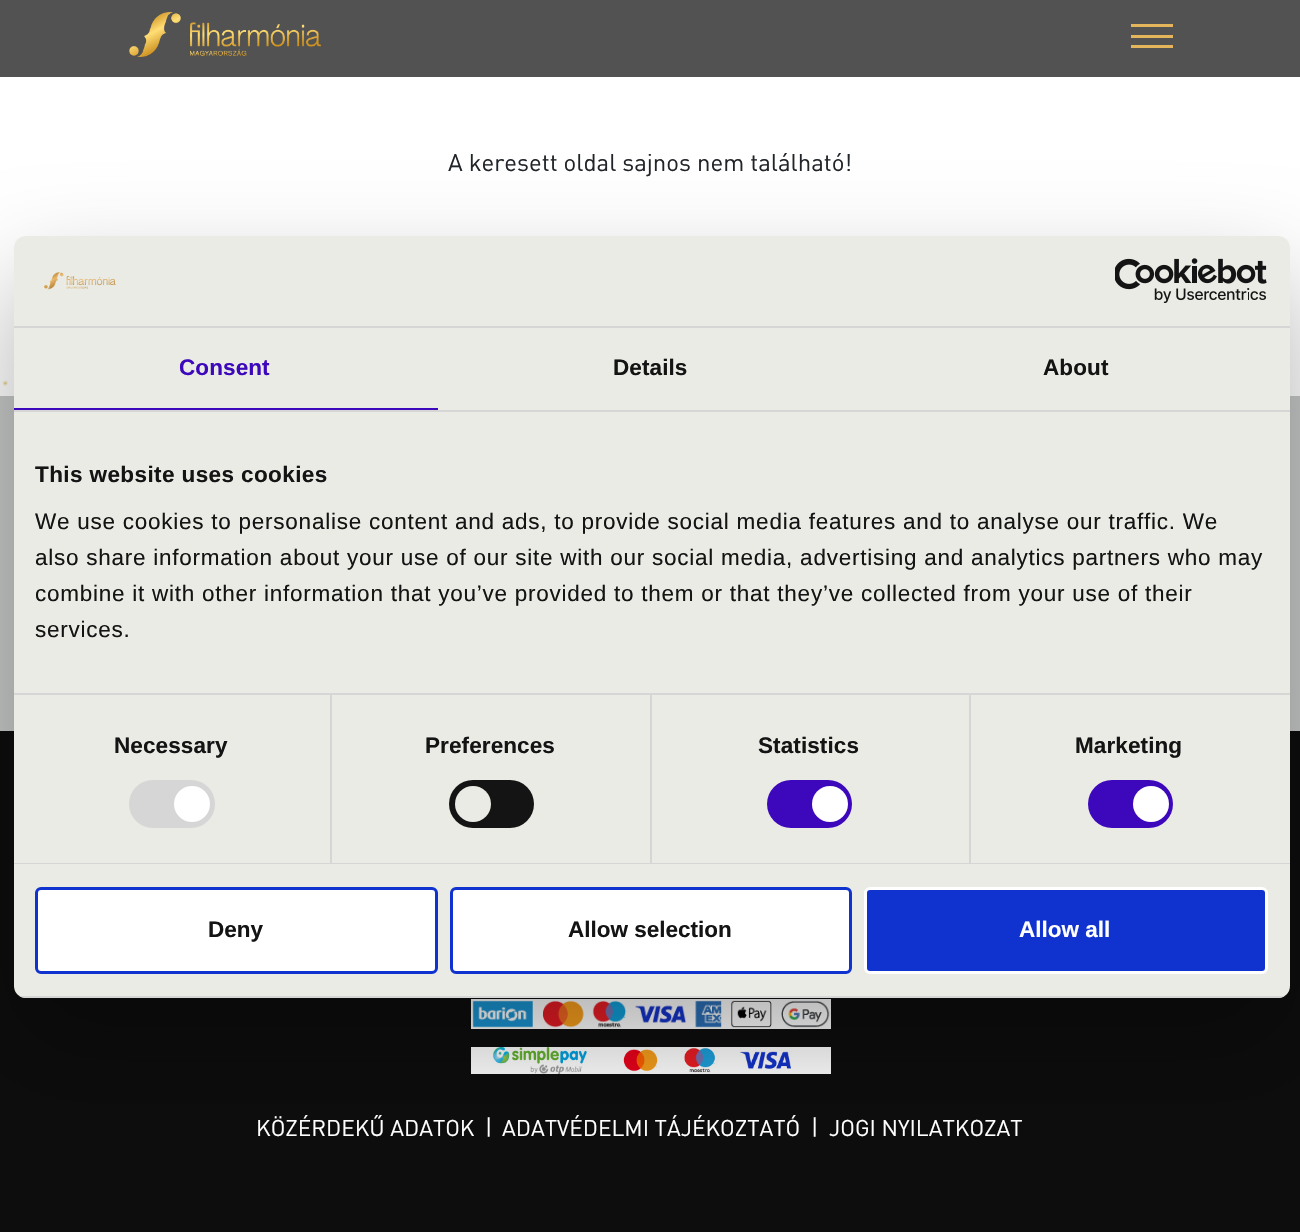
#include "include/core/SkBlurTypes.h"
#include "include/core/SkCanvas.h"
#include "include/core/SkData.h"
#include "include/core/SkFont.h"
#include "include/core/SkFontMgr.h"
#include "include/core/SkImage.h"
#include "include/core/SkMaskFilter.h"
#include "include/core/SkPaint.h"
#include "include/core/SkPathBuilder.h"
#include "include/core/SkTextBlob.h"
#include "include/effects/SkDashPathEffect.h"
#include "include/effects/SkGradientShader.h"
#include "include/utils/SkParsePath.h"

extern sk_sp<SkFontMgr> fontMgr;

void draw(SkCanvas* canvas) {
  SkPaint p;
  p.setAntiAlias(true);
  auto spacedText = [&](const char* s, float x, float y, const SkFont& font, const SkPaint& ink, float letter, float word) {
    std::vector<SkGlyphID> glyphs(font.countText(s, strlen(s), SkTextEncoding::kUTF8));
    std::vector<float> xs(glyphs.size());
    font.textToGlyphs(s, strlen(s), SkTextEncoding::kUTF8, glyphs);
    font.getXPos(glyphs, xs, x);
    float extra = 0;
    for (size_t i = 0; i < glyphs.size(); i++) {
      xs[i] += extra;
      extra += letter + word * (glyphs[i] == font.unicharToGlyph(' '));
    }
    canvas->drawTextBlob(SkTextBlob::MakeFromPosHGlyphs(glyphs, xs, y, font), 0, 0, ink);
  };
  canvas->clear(SkColorSetRGB(13, 13, 13));
  p.setColor(SkColorSetRGB(82, 82, 82));
  canvas->drawRect(SkRect::MakeLTRB(0, 0, 1300, 77), p);
  canvas->drawImageRect(SkImages::DeferredFromEncodedData(SkData::MakeFromFileName("images/1.png")), SkRect::MakeLTRB(129, 12, 321, 57), SkSamplingOptions());
  p.setColor(SkColorSetRGB(228, 182, 92));
  canvas->drawRect(SkRect::MakeLTRB(1131, 24, 1173, 27), p);
  canvas->drawRect(SkRect::MakeLTRB(1131, 35, 1173, 38), p);
  canvas->drawRect(SkRect::MakeLTRB(1131, 45, 1173, 48), p);
  p.setColor(SK_ColorWHITE);
  canvas->drawRect(SkRect::MakeLTRB(0, 77, 1300, 396), p);
  canvas->drawImageRect(SkImages::DeferredFromEncodedData(SkData::MakeFromFileName("images/2.png")), SkRect::MakeLTRB(2, 380, 8, 386), SkSamplingOptions());
  p.setColor(SkColorSetRGB(198, 199, 199));
  canvas->drawRect(SkRect::MakeLTRB(0, 396, 1300, 731), p);
  canvas->drawImageRect(SkImages::DeferredFromEncodedData(SkData::MakeFromFileName("images/5.png")), SkRect::MakeLTRB(471, 999, 831, 1029), SkSamplingOptions());
  canvas->drawImageRect(SkImages::DeferredFromEncodedData(SkData::MakeFromFileName("images/6.png")), SkRect::MakeLTRB(471, 1047, 831, 1074), SkSamplingOptions());
  p.setColor(SkColorSetARGB(77, 0, 0, 0));
  p.setMaskFilter(SkMaskFilter::MakeBlur(kNormal_SkBlurStyle, 51));
  canvas->drawRoundRect(SkRect::MakeLTRB(14, 284, 1290, 1046), 12, 12, p);
  p.setMaskFilter(nullptr);
  p.setColor(SkColorSetRGB(234, 235, 229));
  canvas->drawRoundRect(SkRect::MakeLTRB(14, 236, 1290, 998), 12, 12, p);
  p.setColor(SkColorSetRGB(214, 214, 214));
  canvas->drawRect(SkRect::MakeLTRB(14, 326, 1290, 328), p);
  canvas->drawImageRect(SkImages::DeferredFromEncodedData(SkData::MakeFromFileName("images/3.png")), SkRect::MakeLTRB(44, 272, 116, 290), SkSamplingOptions());
  canvas->drawImageRect(SkImages::DeferredFromEncodedData(SkData::MakeFromFileName("images/4.png")), SkRect::MakeLTRB(1115, 258, 1267, 303), SkSamplingOptions());
  canvas->drawRect(SkRect::MakeLTRB(14, 410, 1290, 412), p);
  p.setColor(SkColorSetRGB(61, 7, 187));
  canvas->drawRect(SkRect::MakeLTRB(14, 408, 438, 410), p);
  p.setColor(SkColorSetRGB(214, 214, 214));
  canvas->drawRect(SkRect::MakeLTRB(14, 693, 1290, 695), p);
  canvas->drawRect(SkRect::MakeLTRB(14, 863, 1290, 864), p);
  canvas->drawRect(SkRect::MakeLTRB(330, 695, 332, 863), p);
  canvas->drawRoundRect(SkRect::MakeLTRB(129, 780, 215, 828), 24, 24, p);
  p.setColor(SK_ColorWHITE);
  canvas->drawCircle(192, 804, 18, p);
  p.setColor(SkColorSetRGB(214, 214, 214));
  canvas->drawRect(SkRect::MakeLTRB(650, 695, 652, 863), p);
  p.setColor(SkColorSetRGB(20, 20, 20));
  canvas->drawRoundRect(SkRect::MakeLTRB(449, 780, 534, 828), 24, 24, p);
  p.setColor(SkColorSetRGB(234, 235, 229));
  canvas->drawCircle(473, 804, 18, p);
  p.setColor(SkColorSetRGB(214, 214, 214));
  canvas->drawRect(SkRect::MakeLTRB(969, 695, 971, 863), p);
  p.setColor(SkColorSetRGB(61, 7, 187));
  canvas->drawRoundRect(SkRect::MakeLTRB(767, 780, 852, 828), 24, 24, p);
  p.setColor(SK_ColorWHITE);
  canvas->drawCircle(830, 804, 18, p);
  p.setColor(SkColorSetRGB(61, 7, 187));
  canvas->drawRoundRect(SkRect::MakeLTRB(1088, 780, 1173, 828), 24, 24, p);
  p.setColor(SK_ColorWHITE);
  canvas->drawCircle(1151, 804, 18, p);
  canvas->save();
  canvas->clipPath(SkPathBuilder().moveTo(26, 236).lineTo(1278, 236).cubicTo(1284.5f, 236, 1290, 241.5f, 1290, 248).lineTo(1290, 986).cubicTo(1290, 992.5f, 1284.5f, 998, 1278, 998).lineTo(26, 998).cubicTo(19.5f, 998, 14, 992.5f, 14, 986).lineTo(14, 248).cubicTo(14, 241.5f, 19.5f, 236, 26, 236).close().detach(), true);
  p.setColor(SkColorSetRGB(214, 214, 214));
  canvas->drawRect(SkRect::MakeLTRB(14, 996, 1290, 998), p);
  canvas->restore();
  p.setColor(SK_ColorWHITE);
  canvas->drawRoundRect(SkRect::MakeLTRB(36.5f, 888.5f, 436.5f, 972.5f), 4.5f, 4.5f, p);
  p.setStyle(SkPaint::kStroke_Style);
  p.setStrokeWidth(3);
  p.setColor(SkColorSetRGB(16, 50, 207));
  canvas->drawRoundRect(SkRect::MakeLTRB(36.5f, 888.5f, 436.5f, 972.5f), 4.5f, 4.5f, p);
  p.setStyle(SkPaint::kFill_Style);
  p.setColor(SK_ColorWHITE);
  canvas->drawRoundRect(SkRect::MakeLTRB(451.5f, 888.5f, 850.5f, 972.5f), 4.5f, 4.5f, p);
  p.setStyle(SkPaint::kStroke_Style);
  p.setColor(SkColorSetRGB(16, 50, 207));
  canvas->drawRoundRect(SkRect::MakeLTRB(451.5f, 888.5f, 850.5f, 972.5f), 4.5f, 4.5f, p);
  p.setStyle(SkPaint::kFill_Style);
  canvas->drawRoundRect(SkRect::MakeLTRB(865.5f, 888.5f, 1266.5f, 972.5f), 4.5f, 4.5f, p);
  p.setStyle(SkPaint::kStroke_Style);
  p.setColor(SK_ColorWHITE);
  canvas->drawRoundRect(SkRect::MakeLTRB(865.5f, 888.5f, 1266.5f, 972.5f), 4.5f, 4.5f, p);
  SkFont font1(fontMgr->matchFamilyStyle("DIN", SkFontStyle::Normal()), 24);
  font1.setSubpixel(true);
  p.setStyle(SkPaint::kFill_Style);
  p.setColor(SkColorSetRGB(33, 37, 41));
  canvas->drawString("A keresett oldal sajnos nem található!", 448, 171, font1, p);
  SkFont font2(fontMgr->matchFamilyStyle("Liberation Sans", SkFontStyle::Bold()), 22.5f);
  font2.setSubpixel(true);
  p.setColor(SkColorSetRGB(61, 7, 187));
  spacedText("Consent", 179, 375, font2, p, 0.1f, 0);
  p.setColor(SkColorSetRGB(20, 20, 20));
  spacedText("Details", 613, 375, font2, p, 0.1f, 0);
  spacedText("About", 1043, 375, font2, p, 0.1f, 0);
  spacedText("This website uses cookies", 35, 482, font2, p, 0.4f, 0);
  SkFont font3(fontMgr->matchFamilyStyle("Liberation Sans", SkFontStyle::Normal()), 22.5f);
  font3.setSubpixel(true);
  spacedText("We use cookies to personalise content and ads, to provide social media features and to analyse our traffic. We", 35, 529, font3, p, 0.75f, 0);
  spacedText("also share information about your use of our site with our social media, advertising and analytics partners who may", 35, 565, font3, p, 0.75f, 0);
  spacedText("combine it with other information that you’ve provided to them or that they’ve collected from your use of their", 35, 601, font3, p, 0.75f, 0);
  spacedText("services.", 35, 637, font3, p, 0.75f, 0);
  spacedText("Necessary", 114, 753, font2, p, 0.1f, 0);
  spacedText("Preferences", 425, 753, font2, p, 0.1f, 0);
  spacedText("Statistics", 758, 753, font2, p, 0.1f, 0);
  spacedText("Marketing", 1075, 753, font2, p, 0.1f, 0);
  canvas->drawString("Deny", 208, 937, font2, p);
  canvas->drawString("Allow selection", 568, 937, font2, p);
  p.setColor(SK_ColorWHITE);
  canvas->drawString("Allow all", 1019, 937, font2, p);
  SkFont font4(fontMgr->matchFamilyStyle("DIN", SkFontStyle::Normal()), 22.5f);
  font4.setSubpixel(true);
  canvas->drawString("KÖZÉRDEKŰ ADATOK", 256, 1136, font4, p);
  canvas->drawString("|", 485, 1135, font4, p);
  canvas->drawString("ADATVÉDELMI TÁJÉKOZTATÓ", 502, 1136, font4, p);
  canvas->drawString("|", 811, 1135, font4, p);
  canvas->drawString("JOGI NYILATKOZAT", 829, 1136, font4, p);
}
